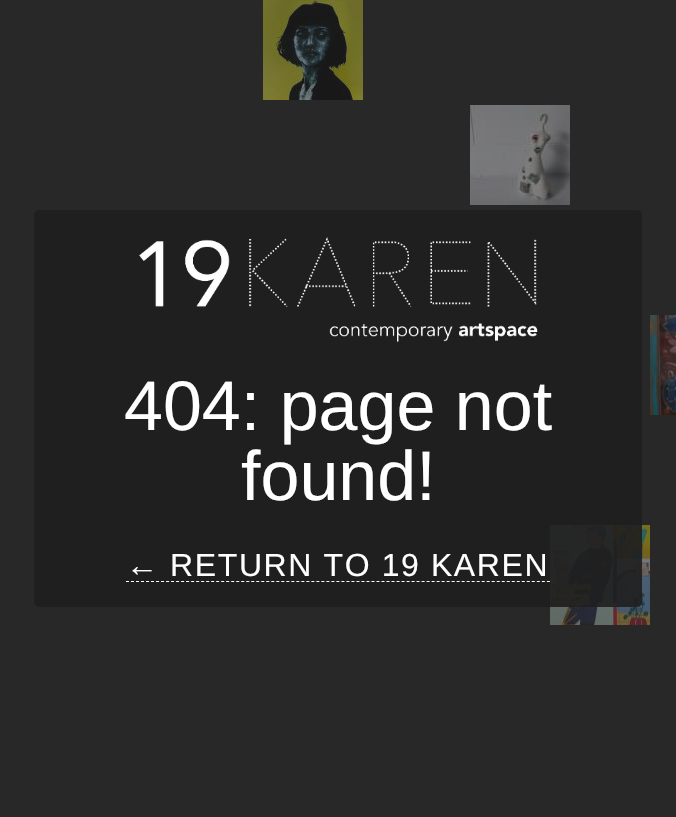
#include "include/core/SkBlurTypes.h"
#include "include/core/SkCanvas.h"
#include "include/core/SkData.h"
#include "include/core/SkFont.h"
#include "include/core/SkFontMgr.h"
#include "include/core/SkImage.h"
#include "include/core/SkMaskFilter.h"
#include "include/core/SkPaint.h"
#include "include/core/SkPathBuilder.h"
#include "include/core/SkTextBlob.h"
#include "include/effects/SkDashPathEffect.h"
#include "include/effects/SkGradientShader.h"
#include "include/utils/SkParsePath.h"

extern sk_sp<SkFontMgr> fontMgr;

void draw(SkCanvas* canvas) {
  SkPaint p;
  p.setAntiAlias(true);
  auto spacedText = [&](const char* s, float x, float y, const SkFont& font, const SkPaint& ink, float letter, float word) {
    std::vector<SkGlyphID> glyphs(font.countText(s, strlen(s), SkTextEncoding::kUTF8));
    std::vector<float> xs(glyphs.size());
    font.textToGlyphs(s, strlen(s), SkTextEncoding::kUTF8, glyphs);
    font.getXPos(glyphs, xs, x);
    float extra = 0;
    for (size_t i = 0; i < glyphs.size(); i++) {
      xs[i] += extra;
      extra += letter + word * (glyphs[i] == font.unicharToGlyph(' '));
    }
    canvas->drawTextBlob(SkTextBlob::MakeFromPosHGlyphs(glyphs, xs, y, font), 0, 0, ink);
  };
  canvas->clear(SkColorSetRGB(40, 40, 40));
  canvas->drawImageRect(SkImages::DeferredFromEncodedData(SkData::MakeFromFileName("images/1.png")), SkRect::MakeLTRB(263, 0, 363, 100), SkSamplingOptions());
  canvas->drawImageRect(SkImages::DeferredFromEncodedData(SkData::MakeFromFileName("images/2.png")), SkRect::MakeLTRB(470, 105, 570, 205), SkSamplingOptions());
  canvas->drawImageRect(SkImages::DeferredFromEncodedData(SkData::MakeFromFileName("images/3.png")), SkRect::MakeLTRB(650, 315, 676, 415), SkSamplingOptions());
  canvas->drawImageRect(SkImages::DeferredFromEncodedData(SkData::MakeFromFileName("images/4.png")), SkRect::MakeLTRB(550, 525, 650, 625), SkSamplingOptions());
  p.setColor(SkColorSetARGB(230, 30, 30, 30));
  canvas->drawRoundRect(SkRect::MakeLTRB(34, 210, 642, 607), 5, 5, p);
  canvas->drawImageRect(SkImages::DeferredFromEncodedData(SkData::MakeFromFileName("images/5.png")), SkRect::MakeLTRB(139, 237, 538, 342), SkSamplingOptions());
  p.setStyle(SkPaint::kStroke_Style);
  p.setStrokeWidth(1);
  p.setColor(SK_ColorWHITE);
  p.setPathEffect(SkDashPathEffect::Make({{3, 2.01f}}, 0));
  canvas->drawPath(SkPathBuilder().moveTo(126, 581.5f).lineTo(550, 581.5f).detach(), p);
  p.setPathEffect(nullptr);
  SkFont font1(fontMgr->matchFamilyStyle("Liberation Sans", SkFontStyle::Normal()), 70);
  font1.setSubpixel(true);
  p.setStyle(SkPaint::kFill_Style);
  canvas->drawString("404: page not", 124, 430, font1, p);
  canvas->drawString("found!", 241, 500, font1, p);
  SkFont font2(fontMgr->matchFamilyStyle("Liberation Sans", SkFontStyle::Normal()), 32);
  font2.setSubpixel(true);
  spacedText("← RETURN TO 19 KAREN", 126, 576, font2, p, 1.6f, 0);
}
